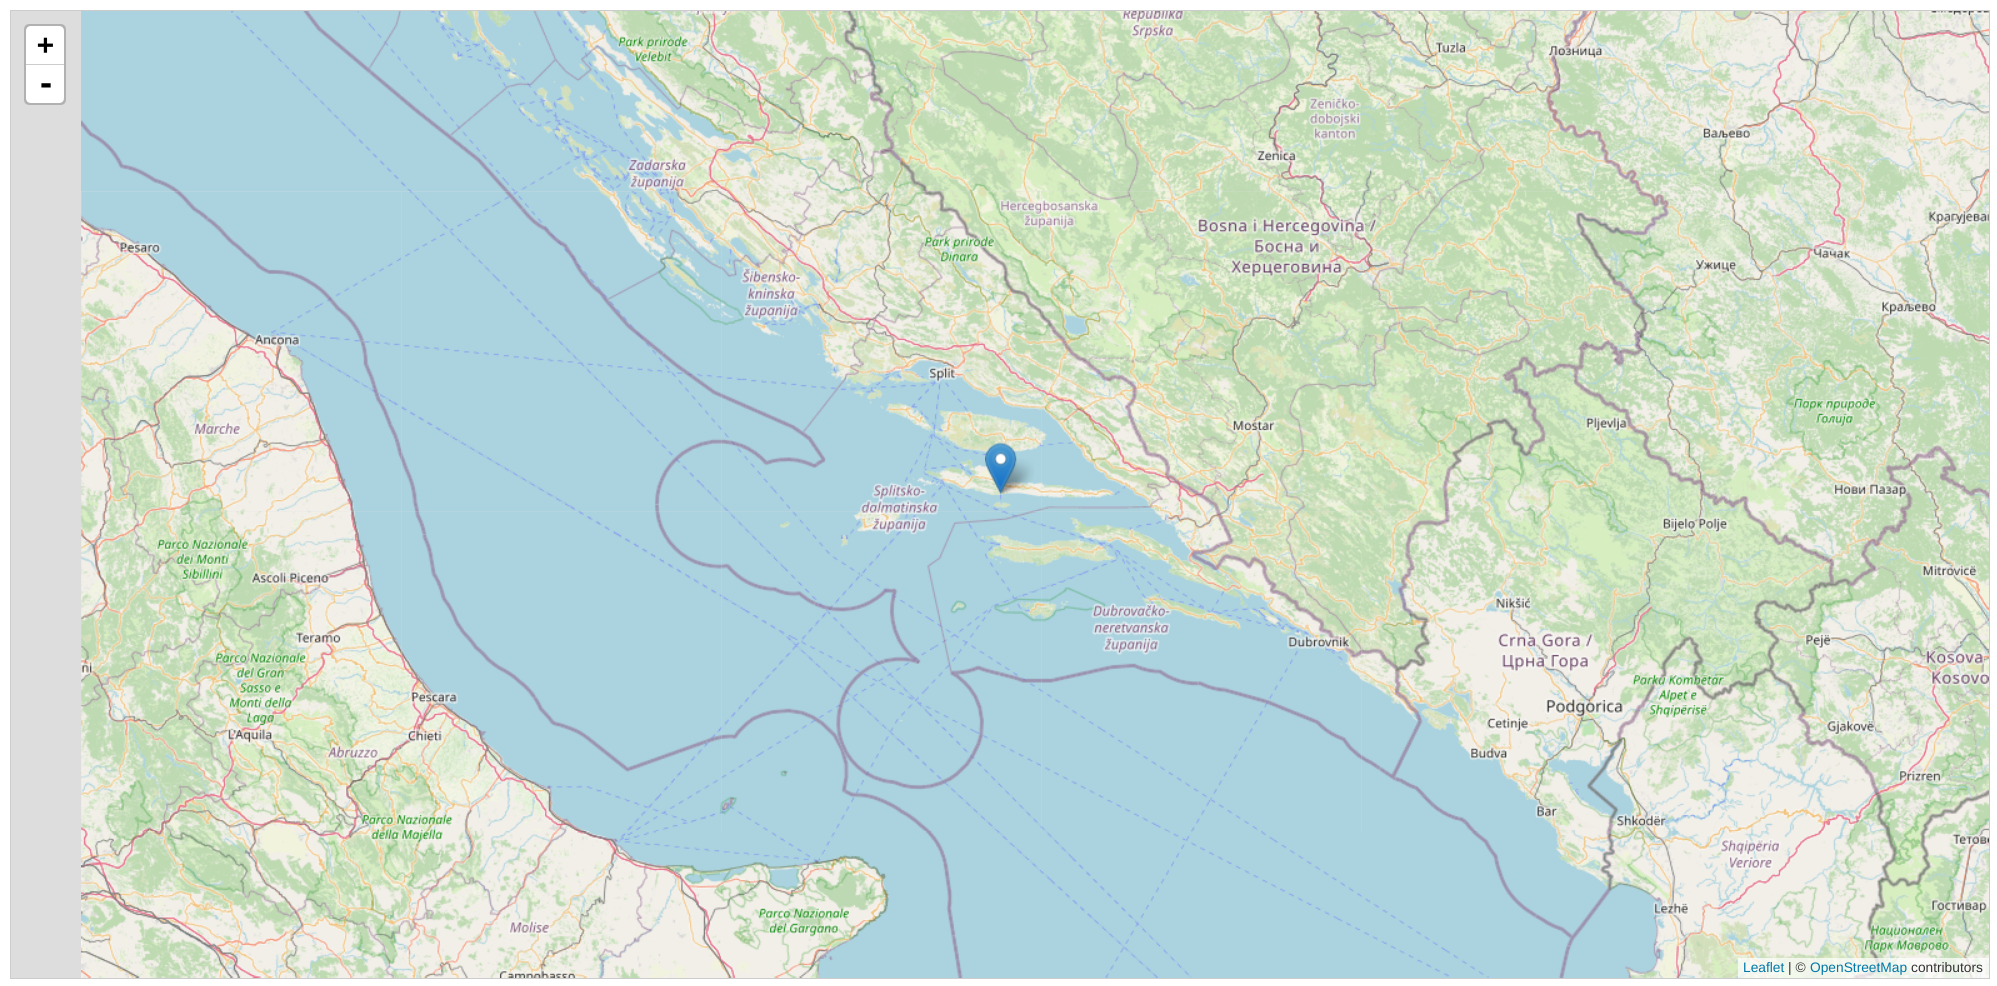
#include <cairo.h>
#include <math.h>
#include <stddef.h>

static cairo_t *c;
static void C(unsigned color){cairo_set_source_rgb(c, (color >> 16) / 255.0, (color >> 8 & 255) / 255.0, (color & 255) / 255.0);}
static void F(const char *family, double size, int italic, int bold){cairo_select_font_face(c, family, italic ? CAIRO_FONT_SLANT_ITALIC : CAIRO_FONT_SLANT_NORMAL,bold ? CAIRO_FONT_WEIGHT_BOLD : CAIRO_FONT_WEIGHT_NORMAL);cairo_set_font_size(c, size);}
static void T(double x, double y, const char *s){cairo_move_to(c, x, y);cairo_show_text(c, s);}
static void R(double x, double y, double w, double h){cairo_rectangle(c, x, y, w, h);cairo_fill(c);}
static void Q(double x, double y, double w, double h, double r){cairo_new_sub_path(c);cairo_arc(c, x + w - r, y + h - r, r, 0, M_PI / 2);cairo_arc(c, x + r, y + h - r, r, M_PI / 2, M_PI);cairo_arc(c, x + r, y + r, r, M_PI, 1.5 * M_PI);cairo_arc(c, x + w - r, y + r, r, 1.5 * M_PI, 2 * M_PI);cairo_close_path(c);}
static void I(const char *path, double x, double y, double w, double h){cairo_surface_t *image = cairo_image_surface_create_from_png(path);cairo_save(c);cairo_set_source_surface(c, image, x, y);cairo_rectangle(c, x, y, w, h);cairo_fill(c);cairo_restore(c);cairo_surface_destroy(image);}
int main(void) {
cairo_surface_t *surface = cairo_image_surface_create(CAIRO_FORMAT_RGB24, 1997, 986);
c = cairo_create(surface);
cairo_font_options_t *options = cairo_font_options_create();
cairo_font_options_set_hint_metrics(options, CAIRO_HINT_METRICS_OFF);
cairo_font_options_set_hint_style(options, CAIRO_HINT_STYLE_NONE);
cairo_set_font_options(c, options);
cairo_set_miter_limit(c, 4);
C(0xffffff);
cairo_paint(c);
C(0xdddddd);
R(11,11,1670,967);
cairo_rectangle(c,10.5,10.5,1979,968);
C(0xcccccc);
cairo_set_line_width(c,1);
cairo_stroke(c);
I("1.png",81,11,320,180);
I("2.png",401,11,320,180);
I("3.png",721,11,320,180);
I("4.png",1041,11,320,180);
I("5.png",1361,11,320,180);
I("6.png",1681,11,308,180);
I("9.png",721,191,321,321);
I("10.png",1041,191,321,321);
I("15.png",721,511,321,320);
I("8.png",401,191,321,321);
I("14.png",401,511,321,320);
I("7.png",81,191,321,321);
I("16.png",1041,511,321,320);
I("11.png",1361,191,320,321);
I("12.png",1681,191,308,320);
I("20.png",401,831,320,147);
I("13.png",81,511,321,321);
I("17.png",1361,511,320,320);
I("18.png",1681,511,308,320);
I("19.png",81,831,320,147);
I("21.png",721,831,320,147);
I("22.png",1041,831,320,147);
I("23.png",1361,831,320,147);
I("24.png",1681,831,308,147);
I("26.png",996,458,38,36);
I("25.png",985,442,32,53);
Q(25.5,25.5,39,78,3.5);
C(0xb1b1b1);
cairo_set_line_width(c,3);
cairo_stroke(c);
C(0xffffff);
cairo_new_path(c);
cairo_move_to(c,31,26);
cairo_line_to(c,59,26);
cairo_curve_to(c,62,26,64,28,64,31);
cairo_line_to(c,64,65);
cairo_line_to(c,26,65);
cairo_line_to(c,26,31);
cairo_curve_to(c,26,28,28,26,31,26);
cairo_close_path(c);
cairo_fill(c);
C(0xcccccc);
R(26,64,38,1);
F("DejaVu Sans Mono",28,0,1);
C(0x000000);
T(37,54,"+");
C(0xffffff);
cairo_new_path(c);
cairo_move_to(c,26,65);
cairo_line_to(c,64,65);
cairo_line_to(c,64,98);
cairo_curve_to(c,64,101,62,103,59,103);
cairo_line_to(c,31,103);
cairo_curve_to(c,28,103,26,101,26,98);
cairo_close_path(c);
cairo_fill(c);
F("DejaVu Sans Mono",30,0,1);
C(0x000000);
T(37,94,"-");
cairo_set_source_rgba(c,1,1,1,0.7);
R(1738,958,251,20);
F("Liberation Sans",13.75,0,0);
C(0x0078a8);
T(1743,972,"Leaflet");
C(0x333333);
T(1788,972,"| ©");
C(0x0078a8);
T(1810,972,"OpenStreetMap");
C(0x333333);
T(1911,972,"contributors");
cairo_surface_write_to_png(surface, "o.png");
cairo_font_options_destroy(options);
cairo_destroy(c);
cairo_surface_destroy(surface);
return 0;
}
